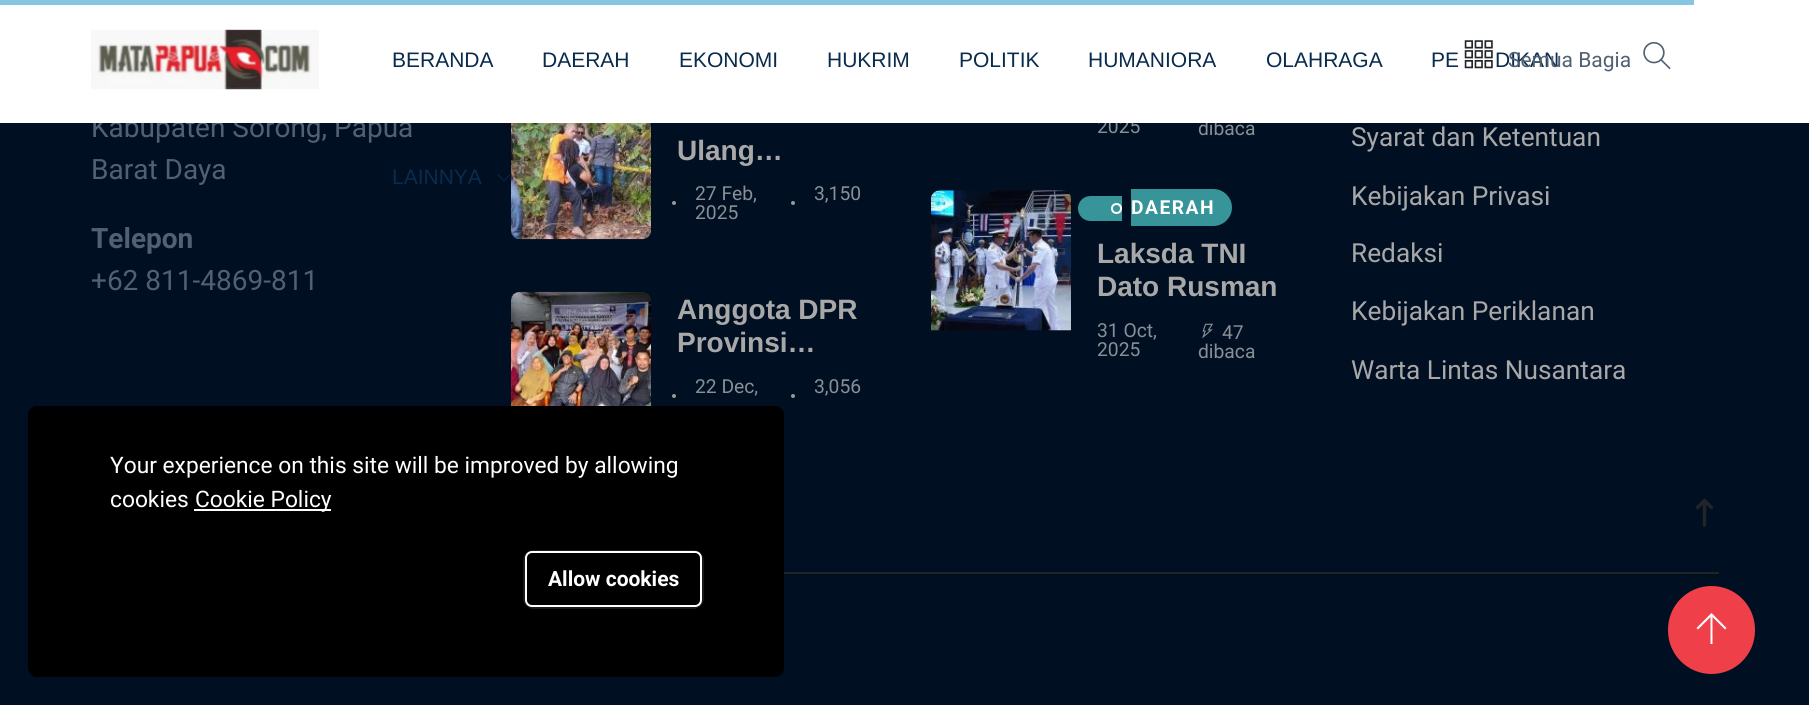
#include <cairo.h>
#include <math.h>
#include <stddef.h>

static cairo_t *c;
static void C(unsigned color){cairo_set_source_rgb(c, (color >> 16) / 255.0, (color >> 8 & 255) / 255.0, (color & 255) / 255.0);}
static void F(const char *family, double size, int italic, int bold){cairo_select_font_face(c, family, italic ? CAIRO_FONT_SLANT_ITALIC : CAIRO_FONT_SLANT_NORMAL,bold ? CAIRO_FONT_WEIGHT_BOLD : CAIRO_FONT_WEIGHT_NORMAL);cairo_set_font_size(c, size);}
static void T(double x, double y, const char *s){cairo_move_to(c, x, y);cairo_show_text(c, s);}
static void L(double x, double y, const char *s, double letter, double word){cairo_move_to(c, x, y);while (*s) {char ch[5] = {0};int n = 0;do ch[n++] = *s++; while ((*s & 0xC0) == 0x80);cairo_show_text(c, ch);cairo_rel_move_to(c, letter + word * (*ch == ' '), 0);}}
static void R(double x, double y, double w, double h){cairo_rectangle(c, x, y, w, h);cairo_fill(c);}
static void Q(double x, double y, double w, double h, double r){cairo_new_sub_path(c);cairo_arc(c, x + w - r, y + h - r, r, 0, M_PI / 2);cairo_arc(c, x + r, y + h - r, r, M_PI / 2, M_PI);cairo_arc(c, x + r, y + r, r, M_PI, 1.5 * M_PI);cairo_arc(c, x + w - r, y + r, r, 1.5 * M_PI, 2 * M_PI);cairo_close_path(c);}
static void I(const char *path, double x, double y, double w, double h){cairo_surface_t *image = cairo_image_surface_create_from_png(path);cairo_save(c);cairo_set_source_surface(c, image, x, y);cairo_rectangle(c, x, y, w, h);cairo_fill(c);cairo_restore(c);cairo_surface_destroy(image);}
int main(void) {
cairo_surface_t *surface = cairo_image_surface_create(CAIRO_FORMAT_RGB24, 1809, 705);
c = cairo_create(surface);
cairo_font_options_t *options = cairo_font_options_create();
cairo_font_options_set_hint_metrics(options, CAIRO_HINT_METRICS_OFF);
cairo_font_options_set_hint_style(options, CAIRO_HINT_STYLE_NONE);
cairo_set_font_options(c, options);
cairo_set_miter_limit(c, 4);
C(0x010f22);
cairo_paint(c);
F("Roboto",28,0,0);
C(0x506172);
T(91,137,"Kabupaten Sorong, Papua");
F("Roboto",19.25,0,0);
C(0x889097);
T(1097,133,"2025");
T(1198,135,"dibaca");
C(0xffffff);
R(0,0,1809,123);
C(0x87c6e3);
R(0,0,1694,5);
I("1.png",91,29,228,61);
F("Arimo",21,0,0);
C(0x092b4d);
T(392,67,"BERANDA");
T(542,67,"DAERAH");
T(679,67,"EKONOMI");
T(827,67,"HUKRIM");
T(959,67,"POLITIK");
T(1088,67,"HUMANIORA");
T(1266,67,"OLAHRAGA");
T(1431,67,"PE");
T(1495,67,"DIKAN");
T(392,184,"LAINNYA");
I("2.png",497,174,14,7);
I("3.png",1464,40,29,29);
F("Roboto",21,0,0);
C(0x506172);
T(1508,67,"Semua Bagia");
I("4.png",1643,42,28,28);
F("Roboto",28,0,0);
T(91,179,"Barat Daya");
F("Roboto",28,0,1);
T(91,248,"Telepon");
F("Roboto",28,0,0);
T(91,290,"+62 811-4869-811");
I("5.png",511,123,140,117);
F("Arimo",28,0,1);
C(0xa8a8a8);
T(677,160,"Ulang…");
C(0x999999);
cairo_new_path(c);
cairo_arc(c,674,203,2,0,2 * M_PI);
cairo_fill(c);
F("Roboto",19.25,0,0);
C(0x889097);
T(695,200,"27 Feb,");
T(695,219,"2025");
C(0x999999);
cairo_new_path(c);
cairo_arc(c,793,203,2,0,2 * M_PI);
cairo_fill(c);
C(0x889097);
T(814,200,"3,150");
I("6.png",511,291,140,115);
F("Arimo",28,0,1);
C(0xa8a8a8);
T(677,319,"Anggota DPR");
T(677,352,"Provinsi…");
C(0x999999);
cairo_new_path(c);
cairo_arc(c,674,396,2,0,2 * M_PI);
cairo_fill(c);
F("Roboto",19.25,0,0);
C(0x889097);
T(695,393,"22 Dec,");
C(0x999999);
cairo_new_path(c);
cairo_arc(c,793,396,2,0,2 * M_PI);
cairo_fill(c);
C(0x889097);
T(814,393,"3,056");
I("7.png",931,190,140,141);
C(0x379499);
cairo_new_path(c);
cairo_move_to(c,1090.5,196);
cairo_line_to(c,1122,196);
cairo_line_to(c,1122,221);
cairo_line_to(c,1090.5,221);
cairo_curve_to(c,1083.5,221,1078,215.5,1078,208.5);
cairo_curve_to(c,1078,201.5,1083.5,196,1090.5,196);
cairo_close_path(c);
cairo_fill(c);
cairo_new_path(c);
cairo_move_to(c,1131,189);
cairo_line_to(c,1213.5,189);
cairo_curve_to(c,1223.5,189,1232,197.5,1232,207.5);
cairo_curve_to(c,1232,217.5,1223.5,226,1213.5,226);
cairo_line_to(c,1131,226);
cairo_close_path(c);
cairo_fill(c);
cairo_arc(c,1116.5,208.5,4.5,0,2 * M_PI);
C(0xffffff);
cairo_stroke(c);
F("Roboto",19.25,0,1);
L(1131,214,"DAERAH",1.5,0);
F("Arimo",28,0,1);
C(0xa8a8a8);
T(1097,263,"Laksda TNI");
T(1097,296,"Dato Rusman");
F("Roboto",19.25,0,0);
C(0x889097);
T(1097,337,"31 Oct,");
T(1097,356,"2025");
I("8.png",1202,323,12,16);
T(1222,339,"47");
T(1198,358,"dibaca");
cairo_new_path(c);
cairo_move_to(c,1351,167);
cairo_line_to(c,1601,167);
C(0x010d1d);
cairo_set_line_width(c,1.8);
cairo_set_dash(c,(double[]){1.75,1.75},2,0);
cairo_stroke(c);
F("Roboto",26.25,0,0);
C(0xa8a8a8);
T(1351,146,"Syarat dan Ketentuan");
T(1351,205,"Kebijakan Privasi");
cairo_new_path(c);
cairo_move_to(c,1351,282.5);
cairo_line_to(c,1626,282.5);
C(0x010d1d);
cairo_stroke(c);
C(0xa8a8a8);
T(1351,262,"Redaksi");
cairo_new_path(c);
cairo_move_to(c,1351,342);
cairo_line_to(c,1626,342);
C(0x010d1d);
cairo_stroke(c);
C(0xa8a8a8);
T(1351,320,"Kebijakan Periklanan");
T(1351,379,"Warta Lintas Nusantara");
C(0x242323);
R(784,572,935,2);
C(0x000000);
Q(28,406,756,271,9);
cairo_fill(c);
F("Roboto",22.75,0,0);
C(0xffffff);
T(110,473,"Your experience on this site will be improved by allowing");
T(110,507,"cookies");
R(194,509,137,2);
T(195,507,"Cookie Policy");
C(0x1a1a1a);
Q(523,550,181,59,11);
cairo_fill(c);
C(0x000000);
Q(526,552,175,54,6);
cairo_fill_preserve(c);
C(0xffffff);
cairo_set_line_width(c,2);
cairo_set_dash(c,NULL,0,0);
cairo_stroke(c);
F("Roboto",21,0,1);
T(548,586,"Allow cookies");
cairo_new_path(c);
cairo_move_to(c,1704.5,500.5);
cairo_line_to(c,1704.5,525);
cairo_move_to(c,1711.5,507.5);
cairo_line_to(c,1704.5,500.5);
cairo_move_to(c,1697.5,507.5);
cairo_line_to(c,1704.5,500.5);
C(0x212529);
cairo_set_line_width(c,3.5);
cairo_set_line_cap(c,CAIRO_LINE_CAP_ROUND);
cairo_set_line_join(c,CAIRO_LINE_JOIN_ROUND);
cairo_stroke(c);
C(0xef3f48);
Q(1668,586,87,88,43.5);
cairo_fill(c);
C(0xffffff);
cairo_new_path(c);
cairo_move_to(c,1725,629.5);
cairo_line_to(c,1712.5,617);
cairo_line_to(c,1712.5,644);
cairo_line_to(c,1710.5,644);
cairo_line_to(c,1710.5,617);
cairo_line_to(c,1698,629.5);
cairo_line_to(c,1696.5,628);
cairo_line_to(c,1711.5,613);
cairo_line_to(c,1726.5,628);
cairo_close_path(c);
cairo_fill(c);
cairo_surface_write_to_png(surface, "o.png");
cairo_font_options_destroy(options);
cairo_destroy(c);
cairo_surface_destroy(surface);
return 0;
}
